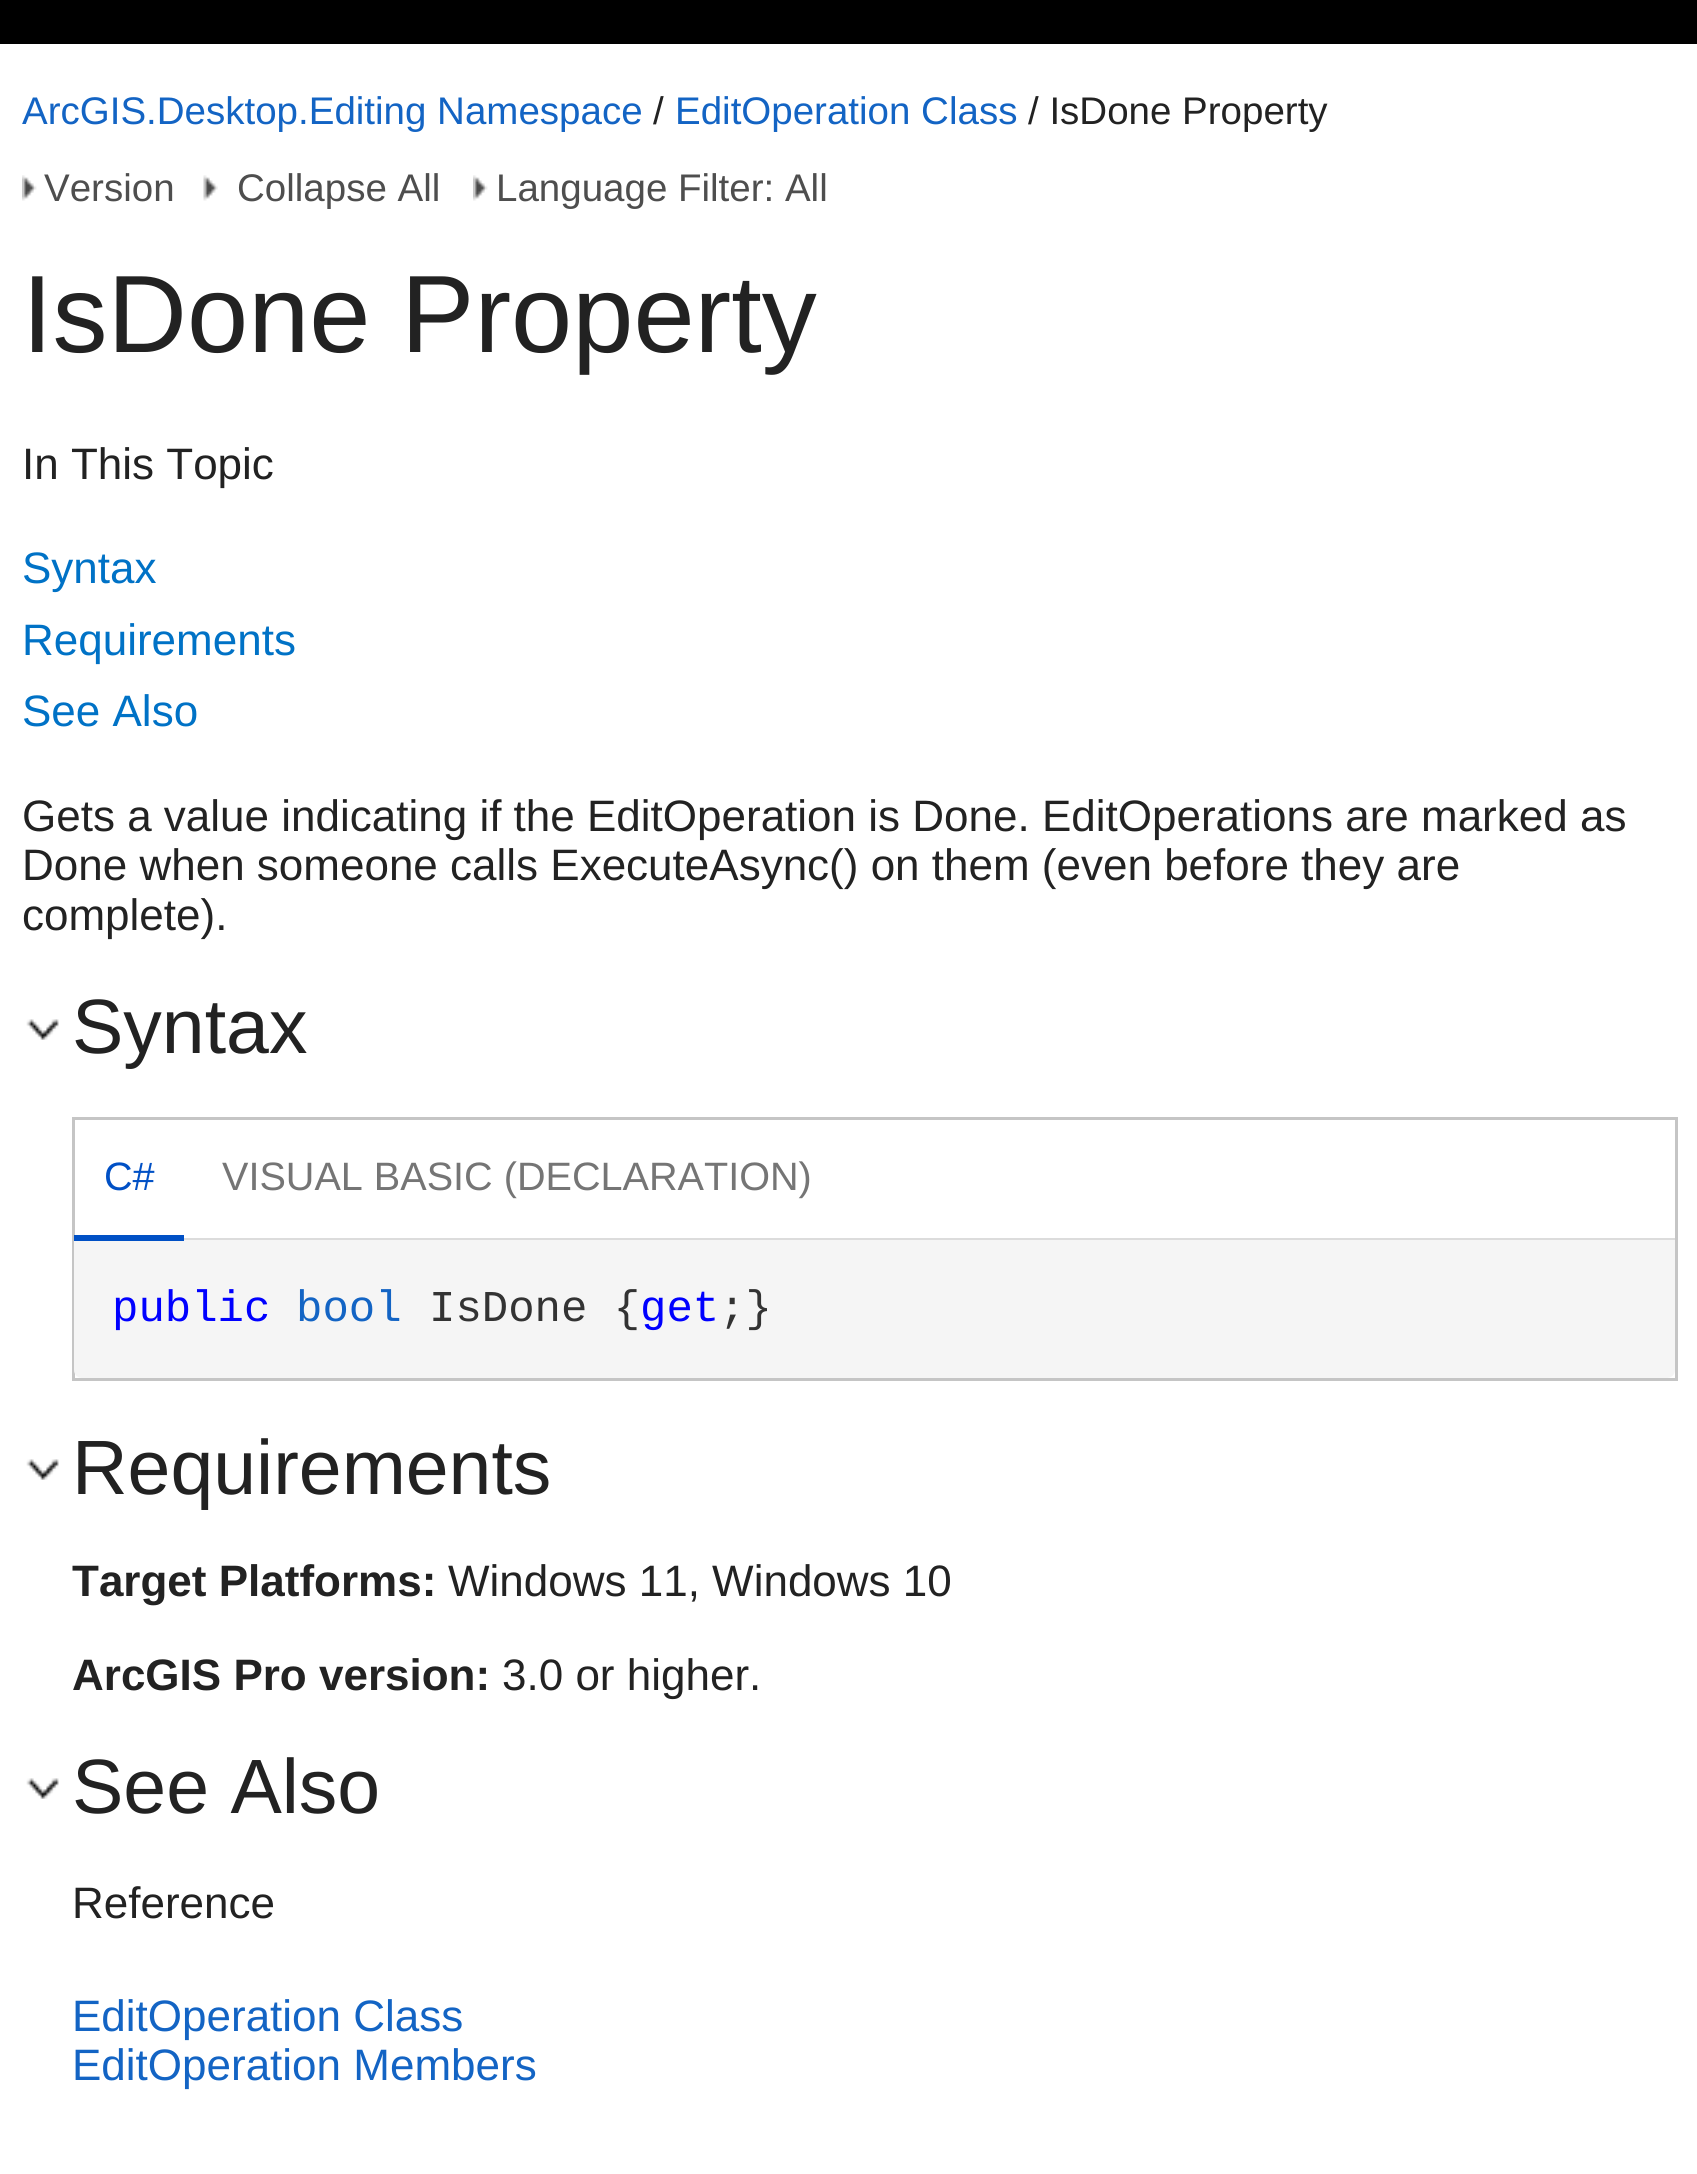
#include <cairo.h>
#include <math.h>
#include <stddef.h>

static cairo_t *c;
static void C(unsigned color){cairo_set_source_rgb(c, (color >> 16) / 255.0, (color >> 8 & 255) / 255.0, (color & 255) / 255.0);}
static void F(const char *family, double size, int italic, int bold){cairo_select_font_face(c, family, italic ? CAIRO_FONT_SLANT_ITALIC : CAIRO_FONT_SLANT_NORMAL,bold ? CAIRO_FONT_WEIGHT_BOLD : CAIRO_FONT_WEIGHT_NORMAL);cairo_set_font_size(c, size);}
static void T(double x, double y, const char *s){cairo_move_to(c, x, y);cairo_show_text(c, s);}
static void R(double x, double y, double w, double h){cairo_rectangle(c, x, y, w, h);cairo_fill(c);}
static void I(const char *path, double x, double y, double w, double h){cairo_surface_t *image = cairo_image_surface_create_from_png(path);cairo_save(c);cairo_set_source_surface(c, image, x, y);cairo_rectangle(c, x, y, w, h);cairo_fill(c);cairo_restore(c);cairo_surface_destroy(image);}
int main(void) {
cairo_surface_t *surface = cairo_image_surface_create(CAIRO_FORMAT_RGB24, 1697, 2174);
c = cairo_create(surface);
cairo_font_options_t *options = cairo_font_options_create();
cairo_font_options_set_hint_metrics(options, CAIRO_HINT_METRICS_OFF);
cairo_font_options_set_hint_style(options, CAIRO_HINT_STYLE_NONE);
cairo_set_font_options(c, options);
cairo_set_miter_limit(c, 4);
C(0xffffff);
cairo_paint(c);
C(0x000000);
R(0,0,1697,44);
F("Liberation Sans",38.5,0,0);
C(0x1364c4);
T(22,124,"ArcGIS.Desktop.Editing Namespace");
C(0x222222);
T(653,124,"/");
C(0x1364c4);
T(675,124,"EditOperation Class");
C(0x222222);
T(1028,124,"/ IsDone Property");
I("1.png",22,175,15,26);
C(0x4e4e4e);
T(44,201,"Version");
I("2.png",203,175,15,26);
T(237,201,"Collapse All");
I("3.png",473,175,15,26);
T(496,201,"Language Filter: All");
F("Liberation Sans",110,0,0);
C(0x222222);
T(22,352,"IsDone Property");
F("Liberation Sans",44,0,0);
T(22,479,"In This Topic");
C(0x0072c6);
T(22,583,"Syntax");
T(22,655,"Requirements");
T(22,726,"See Also");
C(0x222222);
T(22,831,"Gets a value indicating if the EditOperation is Done. EditOperations are marked as");
T(22,880,"Done when someone calls ExecuteAsync() on them (even before they are");
T(22,930,"complete).");
I("4.png",26,1019,33,21);
F("Liberation Sans",77,0,0);
T(72,1053,"Syntax");
cairo_rectangle(c,73.5,1118.5,1603,261);
C(0xc5c5c5);
cairo_set_line_width(c,3);
cairo_stroke(c);
C(0xdcdcdc);
R(184,1238,1491,2);
C(0xf5f5f5);
cairo_new_path(c);
cairo_move_to(c,74,1240);
cairo_line_to(c,1675,1240);
cairo_line_to(c,1675,1370);
cairo_curve_to(c,1675,1374.5,1671.5,1378,1667,1378);
cairo_line_to(c,82,1378);
cairo_curve_to(c,77.5,1378,74,1374.5,74,1370);
cairo_close_path(c);
cairo_fill(c);
C(0x0050c5);
R(74,1235,110,6);
F("Liberation Sans",39.6,0,0);
T(104,1190,"C#");
C(0x757575);
T(222,1190,"VISUAL BASIC (DECLARATION)");
F("Liberation Mono",44,0,0);
C(0x0000ff);
T(112,1321,"public");
C(0x1364c4);
T(296,1321,"bool");
C(0x333333);
T(429,1321,"IsDone {");
C(0x0000ff);
T(640,1321,"get");
C(0x333333);
T(719,1321,";}");
I("4.png",26,1459,33,21);
F("Liberation Sans",77,0,0);
C(0x222222);
T(72,1494,"Requirements");
F("Liberation Sans",44,0,1);
T(72,1596,"Target Platforms:");
F("Liberation Sans",44,0,0);
T(448,1596,"Windows 11, Windows 10");
F("Liberation Sans",44,0,1);
T(72,1690,"ArcGIS Pro version:");
F("Liberation Sans",44,0,0);
T(502,1690,"3.0 or higher.");
I("5.png",26,1778,33,21);
F("Liberation Sans",77,0,0);
T(72,1813,"See Also");
F("Liberation Sans",44,0,0);
T(72,1918,"Reference");
C(0x1364c4);
T(72,2031,"EditOperation Class");
T(72,2080,"EditOperation Members");
cairo_surface_write_to_png(surface, "o.png");
cairo_font_options_destroy(options);
cairo_destroy(c);
cairo_surface_destroy(surface);
return 0;
}
